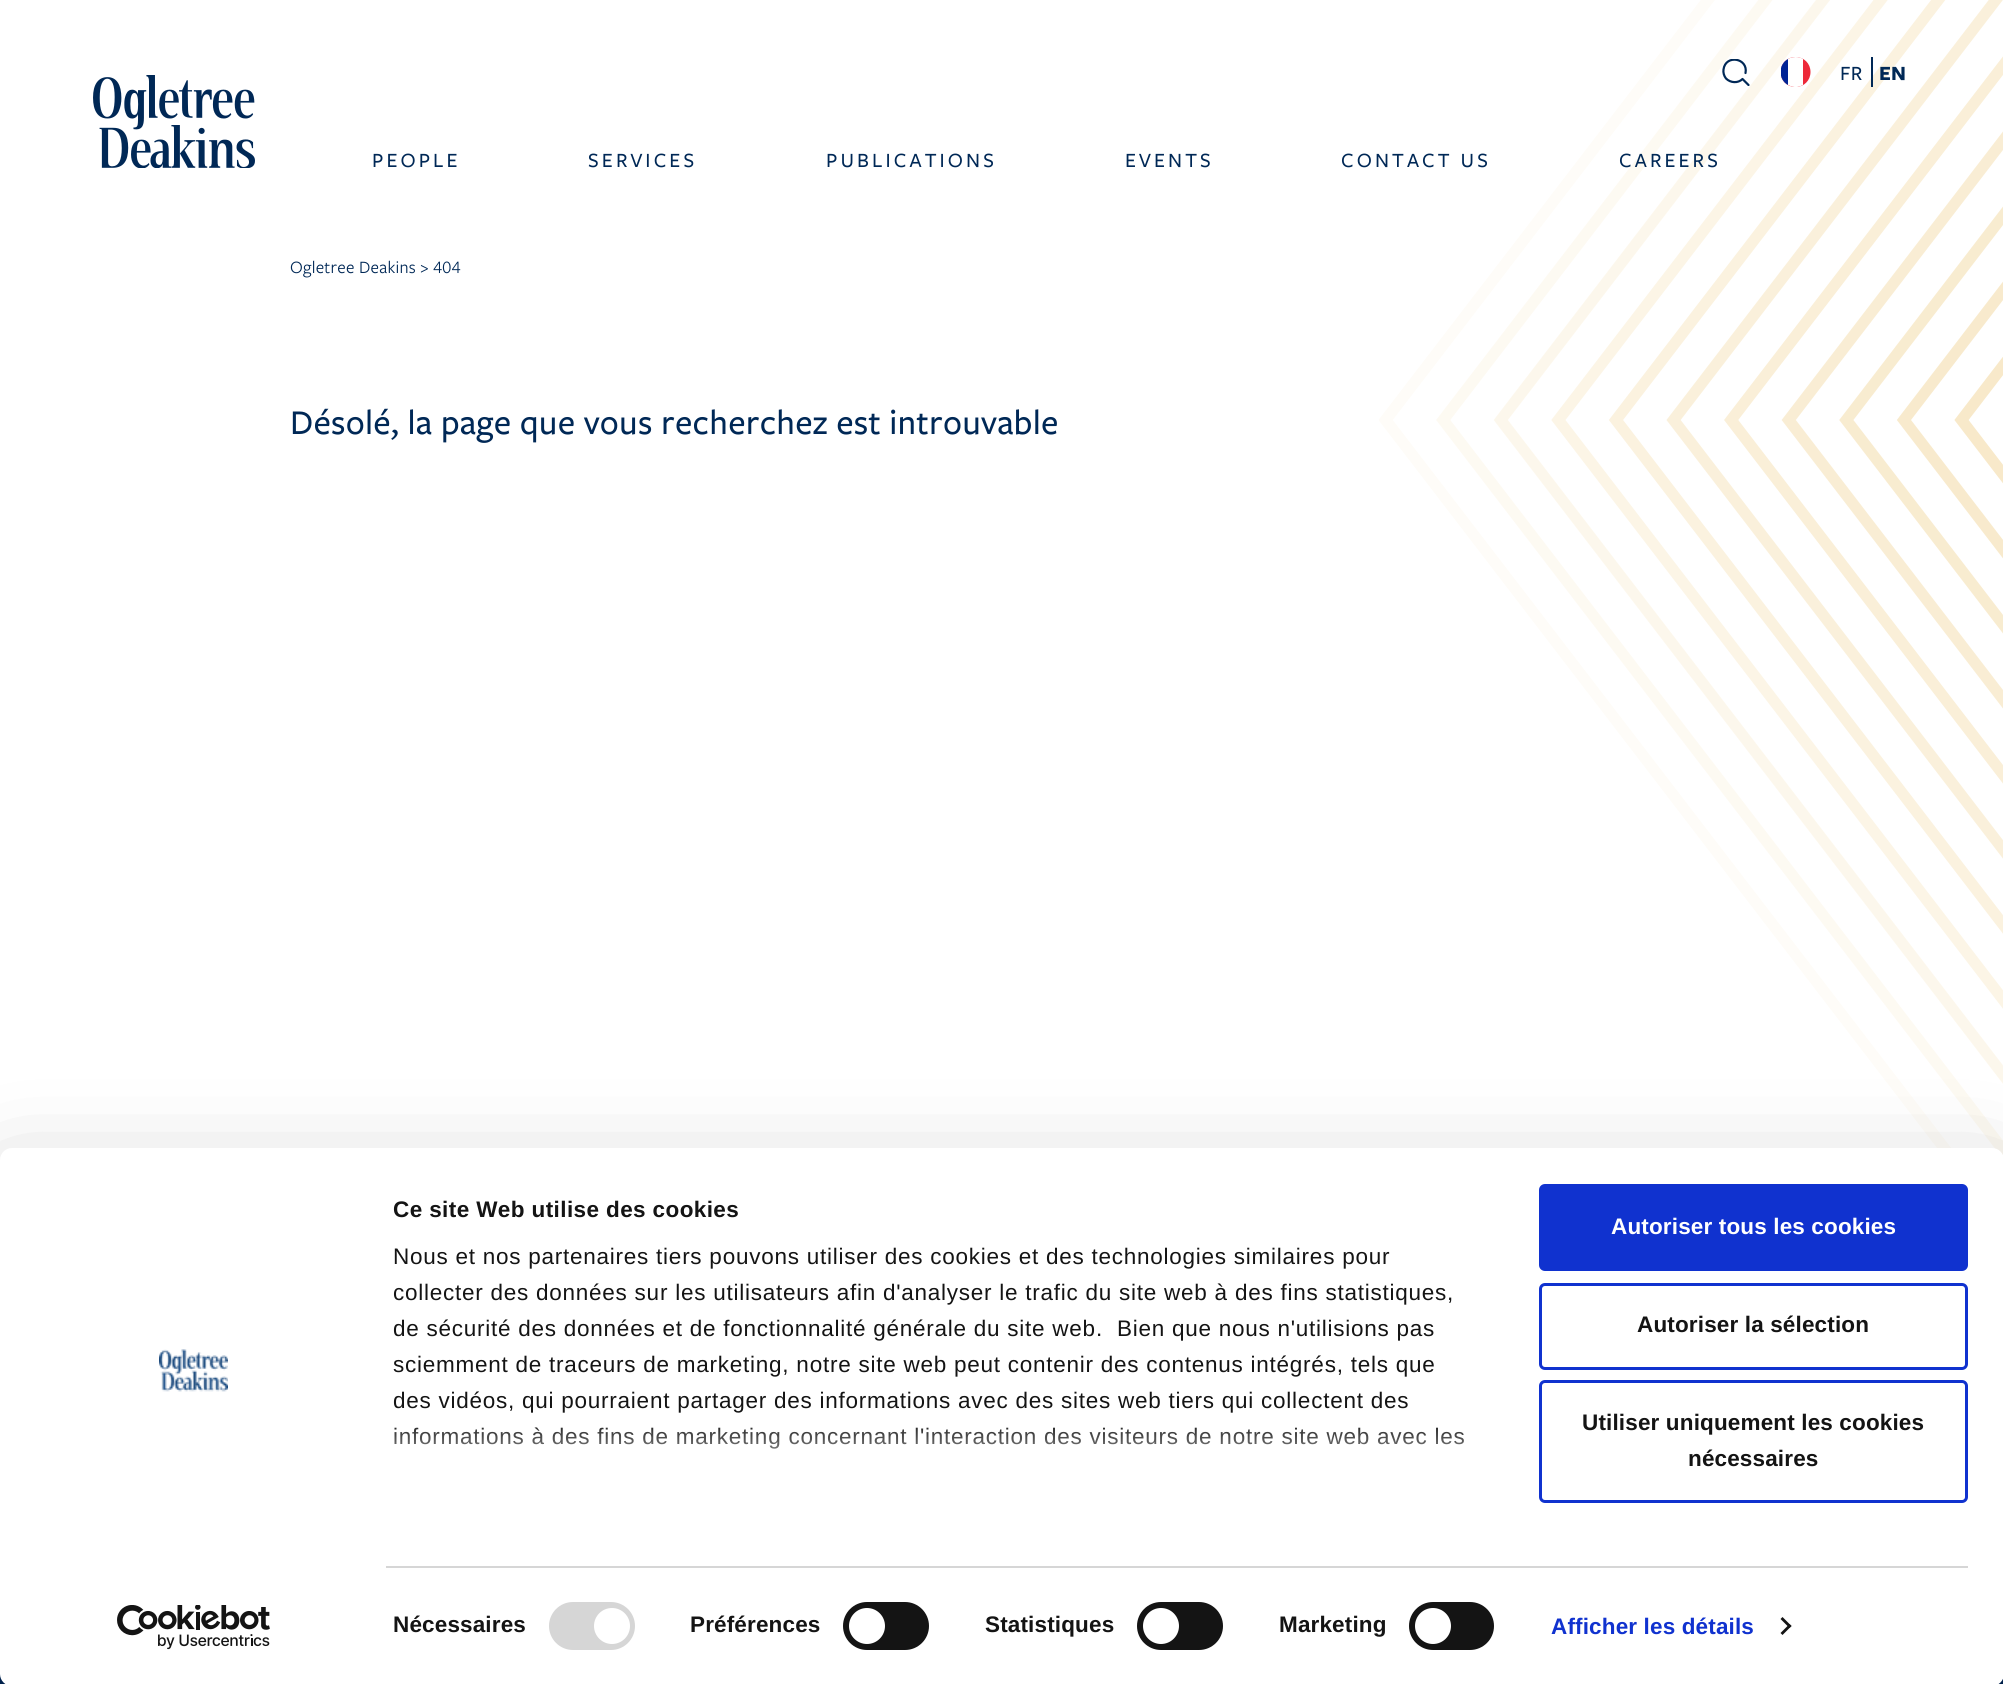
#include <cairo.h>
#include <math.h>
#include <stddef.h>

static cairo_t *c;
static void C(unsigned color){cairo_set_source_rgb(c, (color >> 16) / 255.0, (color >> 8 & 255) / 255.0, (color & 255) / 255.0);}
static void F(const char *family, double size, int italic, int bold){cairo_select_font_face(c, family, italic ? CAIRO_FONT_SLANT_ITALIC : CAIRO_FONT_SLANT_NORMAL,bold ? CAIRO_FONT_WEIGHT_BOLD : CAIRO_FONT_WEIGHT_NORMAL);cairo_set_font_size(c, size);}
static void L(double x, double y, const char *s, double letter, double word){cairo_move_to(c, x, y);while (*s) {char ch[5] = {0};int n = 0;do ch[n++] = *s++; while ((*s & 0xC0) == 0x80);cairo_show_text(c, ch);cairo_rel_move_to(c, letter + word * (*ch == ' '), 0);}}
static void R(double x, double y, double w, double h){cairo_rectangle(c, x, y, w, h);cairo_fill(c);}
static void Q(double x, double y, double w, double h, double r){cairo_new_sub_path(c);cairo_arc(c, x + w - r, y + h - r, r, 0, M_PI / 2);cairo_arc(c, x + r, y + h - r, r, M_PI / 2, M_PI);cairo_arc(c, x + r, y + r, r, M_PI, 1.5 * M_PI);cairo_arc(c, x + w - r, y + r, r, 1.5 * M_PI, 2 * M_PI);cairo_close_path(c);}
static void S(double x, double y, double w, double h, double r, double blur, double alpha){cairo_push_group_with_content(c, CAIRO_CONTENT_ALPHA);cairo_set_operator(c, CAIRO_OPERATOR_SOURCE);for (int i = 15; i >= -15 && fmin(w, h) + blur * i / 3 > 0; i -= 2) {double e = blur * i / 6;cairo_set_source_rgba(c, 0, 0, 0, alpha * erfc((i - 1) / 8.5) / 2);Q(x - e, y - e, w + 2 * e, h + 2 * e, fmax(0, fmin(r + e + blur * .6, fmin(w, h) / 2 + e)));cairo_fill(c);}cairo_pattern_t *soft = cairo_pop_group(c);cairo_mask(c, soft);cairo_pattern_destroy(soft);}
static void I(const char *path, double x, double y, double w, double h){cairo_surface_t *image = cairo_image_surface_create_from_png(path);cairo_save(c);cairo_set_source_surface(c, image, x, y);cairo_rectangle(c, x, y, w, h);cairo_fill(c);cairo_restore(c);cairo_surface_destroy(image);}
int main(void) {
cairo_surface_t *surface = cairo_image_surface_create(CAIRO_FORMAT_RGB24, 2003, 1684);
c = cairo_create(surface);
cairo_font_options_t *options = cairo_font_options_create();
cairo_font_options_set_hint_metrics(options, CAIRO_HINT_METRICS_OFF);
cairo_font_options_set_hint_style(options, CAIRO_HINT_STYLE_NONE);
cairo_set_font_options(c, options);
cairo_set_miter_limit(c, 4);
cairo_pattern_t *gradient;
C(0xffffff);
cairo_paint(c);
I("2.png",1379,0,624,1156);
cairo_save(c);
cairo_rectangle(c,1722,59,29,27);
cairo_clip(c);
cairo_new_path(c);
cairo_move_to(c,1748.5,85);
cairo_line_to(c,1742.5,79);
cairo_curve_to(c,1738,83.5,1730.5,83,1726,78.5);
cairo_curve_to(c,1724,76,1723,72.5,1723.5,69.5);
cairo_curve_to(c,1725.5,54,1748.5,58,1745.5,73);
C(0x002856);
cairo_set_line_width(c,2.2);
cairo_set_line_cap(c,CAIRO_LINE_CAP_ROUND);
cairo_set_line_join(c,CAIRO_LINE_JOIN_ROUND);
cairo_stroke(c);
cairo_restore(c);
cairo_save(c);
cairo_rectangle(c,1781,57,30,30);
cairo_clip(c);
C(0xed2939);
cairo_new_path(c);
cairo_move_to(c,1795.5,57);
cairo_curve_to(c,1804,57,1810.5,63.5,1810.5,72);
cairo_curve_to(c,1810.5,80.5,1804,87,1795.5,87);
cairo_curve_to(c,1787,87,1780.5,80.5,1780.5,72);
cairo_curve_to(c,1780.5,63.5,1787,57,1795.5,57);
cairo_close_path(c);
cairo_fill(c);
C(0xffffff);
cairo_new_path(c);
cairo_move_to(c,1795.5,57);
cairo_curve_to(c,1798,57,1801,57.5,1803,59);
cairo_line_to(c,1803,85);
cairo_curve_to(c,1788.5,93.5,1772.5,74,1785,61.5);
cairo_curve_to(c,1787.5,58.5,1791.5,57,1795.5,57);
cairo_close_path(c);
cairo_fill(c);
C(0x002395);
cairo_new_path(c);
cairo_move_to(c,1788,59);
cairo_line_to(c,1788,85);
cairo_curve_to(c,1778,79.5,1778,64.5,1788,59);
cairo_close_path(c);
cairo_fill(c);
cairo_restore(c);
F("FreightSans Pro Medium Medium",21,0,0);
C(0x002856);
L(1840,80,"FR",.25,0);
R(1871,57,2,30);
F("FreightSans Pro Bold",21,0,1);
L(1879,80,"EN",.25,0);
I("1.png",93,75,162,93);
F("FreightSans Pro Medium Medium",21,0,0);
L(372,167,"PEOPLE",3.1,0);
L(588,167,"SERVICES",3.1,0);
L(826,167,"PUBLICATIONS",3.1,0);
L(1125,167,"EVENTS",3.1,0);
L(1341,167,"CONTACT US",3.1,0);
L(1619,167,"CAREERS",3.1,0);
F("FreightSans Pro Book",18,0,0);
L(290,273,"Ogletree Deakins >",.25,0);
F("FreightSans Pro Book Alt",18,0,0);
L(433,273,"404",.25,0);
F("FreightSans Pro Medium Medium",36,0,0);
L(290,434,"Désolé, la page que vous recherchez est introuvable",.25,0);
C(0x002759);
R(0,1674,2003,10);
C(0x000000);
S(0,1193,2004,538,12,52.5,.3);
C(0xffffff);
Q(0,1148,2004,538,12);
cairo_fill(c);
I("3.png",159,1349,69,43);
I("4.png",117,1605,153,45);
F("Liberation Sans",22.5,0,1);
C(0x141414);
L(393,1217,"Ce site Web utilise des cookies",.4,0);
F("Liberation Sans",22.5,0,0);
L(393,1264,"Nous et nos partenaires tiers pouvons utiliser des cookies et des technologies similaires pour",.75,0);
L(393,1300,"collecter des données sur les utilisateurs afin d'analyser le trafic du site web à des fins statistiques,",.75,0);
L(393,1336,"de sécurité des données et de fonctionnalité générale du site web.  Bien que nous n'utilisions pas",.75,0);
L(393,1372,"sciemment de traceurs de marketing, notre site web peut contenir des contenus intégrés, tels que",.75,0);
L(393,1408,"des vidéos, qui pourraient partager des informations avec des sites web tiers qui collectent des",.75,0);
L(393,1444,"informations à des fins de marketing concernant l'interaction des visiteurs de notre site web avec les",.75,0);
gradient = cairo_pattern_create_linear(930,1532,930,1420);
cairo_pattern_add_color_stop_rgba(gradient,0,1,1,1,1);
cairo_pattern_add_color_stop_rgba(gradient,.5,1,1,1,.8);
cairo_pattern_add_color_stop_rgba(gradient,1,1,1,1,0);
cairo_set_source(c,gradient);
cairo_pattern_destroy(gradient);
R(394,1427,1071,22);
C(0xd6d6d6);
R(386,1566,1582,2);
F("Liberation Sans",22.5,0,1);
C(0x141414);
L(393,1632,"Nécessaires",.15,0);
C(0xd6d6d6);
Q(549,1602,86,48,24);
cairo_fill(c);
C(0xffffff);
cairo_arc(c,612,1626,18,0,2 * M_PI);
cairo_fill(c);
C(0x141414);
L(690,1632,"Préférences",.15,0);
Q(843,1602,86,48,24);
cairo_fill(c);
C(0xffffff);
cairo_arc(c,867,1626,18,0,2 * M_PI);
cairo_fill(c);
C(0x141414);
L(985,1632,"Statistiques",.15,0);
Q(1137,1602,86,48,24);
cairo_fill(c);
C(0xffffff);
cairo_arc(c,1161,1626,18,0,2 * M_PI);
cairo_fill(c);
C(0x141414);
L(1279,1632,"Marketing",.15,0);
Q(1409,1602,85,48,24);
cairo_fill(c);
C(0xffffff);
cairo_arc(c,1433,1626,18,0,2 * M_PI);
cairo_fill(c);
C(0x1032cf);
L(1551,1634,"Afficher les détails",.15,0);
C(0x141414);
cairo_new_path(c);
cairo_move_to(c,1782.5,1617);
cairo_line_to(c,1791.5,1626);
cairo_line_to(c,1789.5,1628);
cairo_line_to(c,1780.5,1619);
cairo_close_path(c);
cairo_fill(c);
cairo_new_path(c);
cairo_move_to(c,1789.5,1624);
cairo_line_to(c,1791.5,1626);
cairo_line_to(c,1782.5,1635);
cairo_line_to(c,1780.5,1633);
cairo_close_path(c);
cairo_fill(c);
C(0x1032cf);
Q(1540.5,1185.5,426,84,4.5);
cairo_fill_preserve(c);
cairo_set_line_width(c,3);
cairo_stroke(c);
C(0xffffff);
L(1611,1234,"Autoriser tous les cookies",.15,0);
Q(1540.5,1284.5,426,84,4.5);
C(0x1032cf);
cairo_stroke(c);
C(0x141414);
L(1637,1332,"Autoriser la sélection",.15,0);
Q(1540.5,1381.5,426,120,4.5);
C(0x1032cf);
cairo_stroke(c);
C(0x141414);
L(1582,1430,"Utiliser uniquement les cookies",.15,0);
L(1688,1466,"nécessaires",.15,0);
cairo_surface_write_to_png(surface, "o.png");
cairo_font_options_destroy(options);
cairo_destroy(c);
cairo_surface_destroy(surface);
return 0;
}
